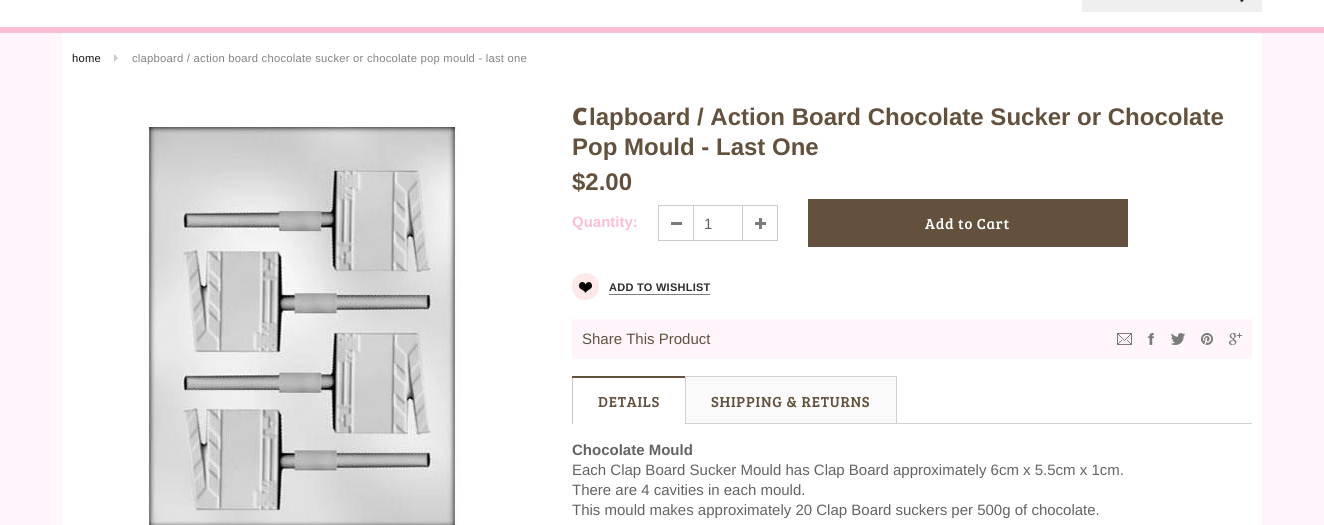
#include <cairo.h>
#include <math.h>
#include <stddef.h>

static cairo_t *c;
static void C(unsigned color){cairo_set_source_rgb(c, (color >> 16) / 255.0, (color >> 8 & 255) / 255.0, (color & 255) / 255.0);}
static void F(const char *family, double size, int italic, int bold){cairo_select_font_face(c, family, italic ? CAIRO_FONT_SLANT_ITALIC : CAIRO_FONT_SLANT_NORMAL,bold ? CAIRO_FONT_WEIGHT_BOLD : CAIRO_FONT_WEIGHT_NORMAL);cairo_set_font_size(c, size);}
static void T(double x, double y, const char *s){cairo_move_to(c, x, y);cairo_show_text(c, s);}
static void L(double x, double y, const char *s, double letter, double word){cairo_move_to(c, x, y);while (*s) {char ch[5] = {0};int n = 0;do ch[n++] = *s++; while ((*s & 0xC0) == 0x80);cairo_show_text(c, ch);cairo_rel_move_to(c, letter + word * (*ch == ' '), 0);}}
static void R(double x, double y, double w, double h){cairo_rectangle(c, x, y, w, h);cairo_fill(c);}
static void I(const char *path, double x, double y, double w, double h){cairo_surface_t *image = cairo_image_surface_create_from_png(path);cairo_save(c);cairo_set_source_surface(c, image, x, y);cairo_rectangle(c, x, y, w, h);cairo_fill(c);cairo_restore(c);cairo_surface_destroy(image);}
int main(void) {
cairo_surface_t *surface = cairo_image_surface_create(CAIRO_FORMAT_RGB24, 1324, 525);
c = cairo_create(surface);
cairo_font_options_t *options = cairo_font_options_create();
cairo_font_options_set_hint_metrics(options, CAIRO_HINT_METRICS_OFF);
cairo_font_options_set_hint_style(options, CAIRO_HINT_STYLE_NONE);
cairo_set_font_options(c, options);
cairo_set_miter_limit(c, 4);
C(0xfff5fb);
cairo_paint(c);
C(0xffffff);
R(0,0,1324,27);
C(0xffbed6);
R(0,27,1324,6);
C(0xefefef);
R(1082,0,180,12);
I("1.png",1240,0,4,3);
C(0xffffff);
R(62,33,1200,492);
F("Liberation Sans",11.25,0,0);
C(0x141414);
L(72,62,"home",.23,0);
C(0xcbcbcb);
cairo_new_path(c);
cairo_move_to(c,114,62);
cairo_line_to(c,114,54);
cairo_line_to(c,118,58);
cairo_close_path(c);
cairo_fill(c);
C(0x848484);
L(132,62,"clapboard / action board chocolate sucker or chocolate pop mould - last one",.23,0);
I("2.png",144,127,316,398);
F("Noto Sans Black",24,0,0);
C(0x63513d);
T(572,125,"C");
F("Liberation Sans",24,0,1);
T(589,125,"lapboard / Action Board Chocolate Sucker or Chocolate");
T(572,155,"Pop Mould - Last One");
T(572,190,"$2.00");
F("Liberation Sans",15,0,1);
C(0xffbed6);
T(572,227,"Quantity:");
C(0x7b7b7b);
R(671,222,11,3);
C(0xcbcbcb);
R(658,205,35,1);
R(658,240,35,1);
R(658,205,1,36);
cairo_rectangle(c,693.5,205.5,49,35);
cairo_set_line_width(c,1);
cairo_stroke(c);
F("Liberation Sans",15,0,0);
C(0x636363);
T(704,229,"1");
I("3.png",755,218,11,11);
C(0xcbcbcb);
R(743,205,35,1);
R(777,205,1,36);
R(743,240,35,1);
C(0x63513d);
R(808,199,320,48);
F("Bree Serif",15,0,0);
C(0xffffff);
L(925,229,"Add to Cart",.75,0);
I("4.png",572,273,27,27);
C(0x7b7b7b);
R(609,294,101,1);
F("Liberation Sans",11,0,1);
C(0x2d2d2d);
L(609,291,"ADD TO WISHLIST",.25,0);
C(0xfff5fb);
R(572,319,680,40);
F("Liberation Sans",15,0,0);
C(0x63513d);
T(582,344,"Share This Product");
I("5.png",1117,333,15,12);
I("6.png",1148,333,6,12);
I("7.png",1171,333,14,12);
I("8.png",1201,333,12,12);
I("9.png",1229,333,13,12);
C(0xd0d0d0);
R(686,423,566,1);
C(0x63513d);
R(572,376,114,2);
C(0xc8c8c8);
R(685,423,1,1);
R(572,378,1,46);
F("Bree Serif",15,0,0);
C(0x63513d);
L(598,407,"DETAILS",.75,0);
C(0xfafafa);
R(686,377,210,46);
C(0xd0d0d0);
R(685,376,212,1);
R(896,376,1,47);
R(685,376,1,47);
C(0x63513d);
L(711,407,"SHIPPING & RETURNS",.75,0);
F("Liberation Sans",15,0,1);
C(0x636363);
T(572,455,"Chocolate Mould");
F("Liberation Sans",15,0,0);
T(572,475,"Each Clap Board Sucker Mould has Clap Board approximately 6cm x 5.5cm x 1cm.");
T(572,495,"There are 4 cavities in each mould.");
T(572,515,"This mould makes approximately 20 Clap Board suckers per 500g of chocolate.");
cairo_surface_write_to_png(surface, "o.png");
cairo_font_options_destroy(options);
cairo_destroy(c);
cairo_surface_destroy(surface);
return 0;
}
